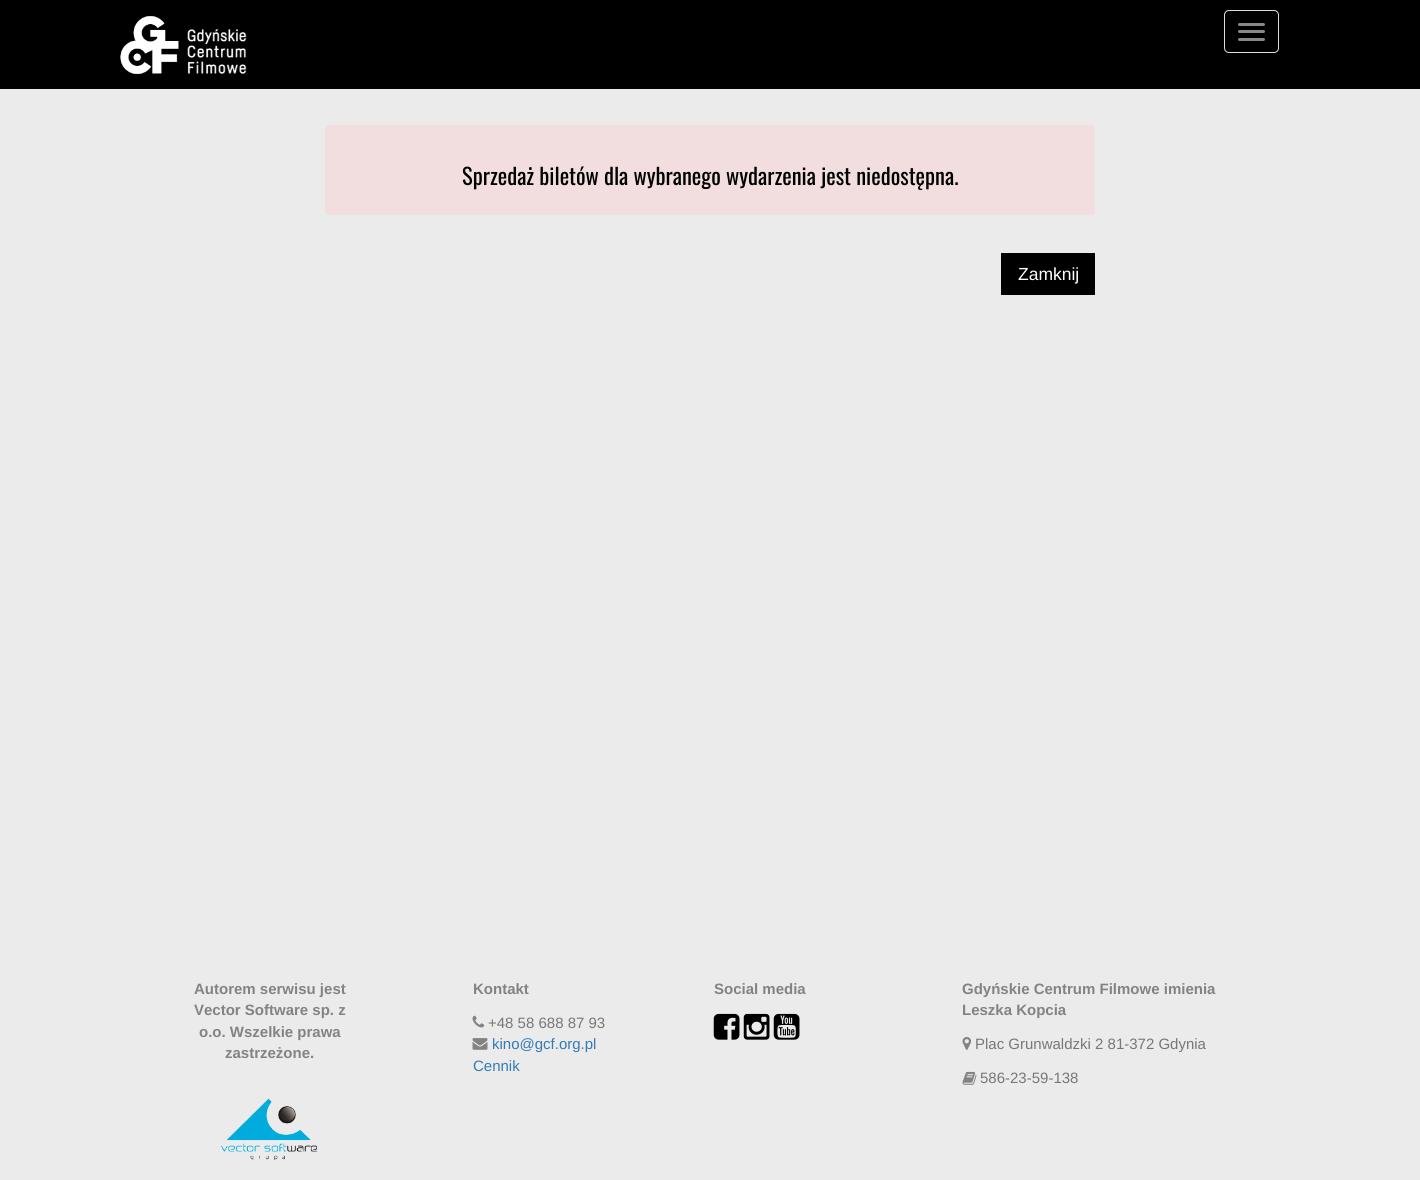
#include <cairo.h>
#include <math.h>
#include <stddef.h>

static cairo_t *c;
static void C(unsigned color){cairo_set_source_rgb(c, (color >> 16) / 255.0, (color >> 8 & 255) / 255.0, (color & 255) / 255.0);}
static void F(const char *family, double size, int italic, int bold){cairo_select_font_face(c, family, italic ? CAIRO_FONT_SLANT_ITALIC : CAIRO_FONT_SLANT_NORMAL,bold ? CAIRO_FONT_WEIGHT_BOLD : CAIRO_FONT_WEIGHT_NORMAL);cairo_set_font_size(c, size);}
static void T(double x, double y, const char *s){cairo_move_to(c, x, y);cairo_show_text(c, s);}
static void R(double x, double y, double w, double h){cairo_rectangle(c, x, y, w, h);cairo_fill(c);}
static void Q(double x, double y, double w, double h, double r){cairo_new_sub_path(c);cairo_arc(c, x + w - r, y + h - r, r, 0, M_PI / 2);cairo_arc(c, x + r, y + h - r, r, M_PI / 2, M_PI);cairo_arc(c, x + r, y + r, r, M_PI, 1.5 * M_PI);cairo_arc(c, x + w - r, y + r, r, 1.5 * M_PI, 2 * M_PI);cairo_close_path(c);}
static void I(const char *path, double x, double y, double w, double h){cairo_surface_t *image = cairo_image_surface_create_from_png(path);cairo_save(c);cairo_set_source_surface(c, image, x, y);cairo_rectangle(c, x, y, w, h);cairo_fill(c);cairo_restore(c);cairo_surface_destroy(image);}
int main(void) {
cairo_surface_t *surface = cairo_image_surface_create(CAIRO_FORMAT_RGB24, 1420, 1180);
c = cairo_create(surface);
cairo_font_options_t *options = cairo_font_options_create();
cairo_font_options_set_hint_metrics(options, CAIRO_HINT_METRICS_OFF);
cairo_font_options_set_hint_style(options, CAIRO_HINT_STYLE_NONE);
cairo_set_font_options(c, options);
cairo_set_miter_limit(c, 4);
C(0xebebeb);
cairo_paint(c);
C(0x000000);
R(0,0,1420,89);
I("1.png",120,16,127,59);
Q(1224.5,10.5,54,42,4.5);
C(0xdddddd);
cairo_set_line_width(c,1);
cairo_stroke(c);
C(0x888888);
Q(1238,23,27,3,1.5);
cairo_fill(c);
Q(1238,30,27,3,1.5);
cairo_fill(c);
Q(1238,38,27,3,1.5);
cairo_fill(c);
C(0xf2dede);
Q(325,125,770,90,5);
cairo_fill(c);
F("Oswald",22.5,0,0);
C(0x000000);
T(462,185,"Sprzedaż biletów dla wybranego wydarzenia jest niedostępna.");
R(1001,253,94,42);
F("Liberation Sans",17.5,0,0);
C(0xffffff);
T(1018,280,"Zamknij");
F("Liberation Sans",15,0,1);
C(0x838383);
T(194,994,"Autorem serwisu jest");
T(194,1015,"Vector Software sp. z");
T(199,1037,"o.o. Wszelkie prawa");
T(225,1058,"zastrzeżone.");
I("2.png",221,1098,96,62);
T(473,994,"Kontakt");
I("3.png",472,1015,13,13);
F("Liberation Sans",15,0,0);
C(0x777777);
T(488,1028,"+48 58 688 87 93");
I("4.png",472,1038,16,12);
C(0x337ab7);
T(492,1049,"kino@gcf.org.pl");
T(473,1071,"Cennik");
F("Liberation Sans",15,0,1);
C(0x838383);
T(714,994,"Social media");
I("5.png",713,1013,27,27);
I("6.png",743,1013,27,27);
I("7.png",773,1013,27,27);
T(962,994,"Gdyńskie Centrum Filmowe imienia");
T(962,1015,"Leszka Kopcia");
I("8.png",962,1037,10,13);
F("Liberation Sans",15,0,0);
C(0x777777);
T(975,1049,"Plac Grunwaldzki 2 81-372 Gdynia");
I("9.png",962,1071,15,14);
T(980,1083,"586-23-59-138");
cairo_surface_write_to_png(surface, "o.png");
cairo_font_options_destroy(options);
cairo_destroy(c);
cairo_surface_destroy(surface);
return 0;
}
